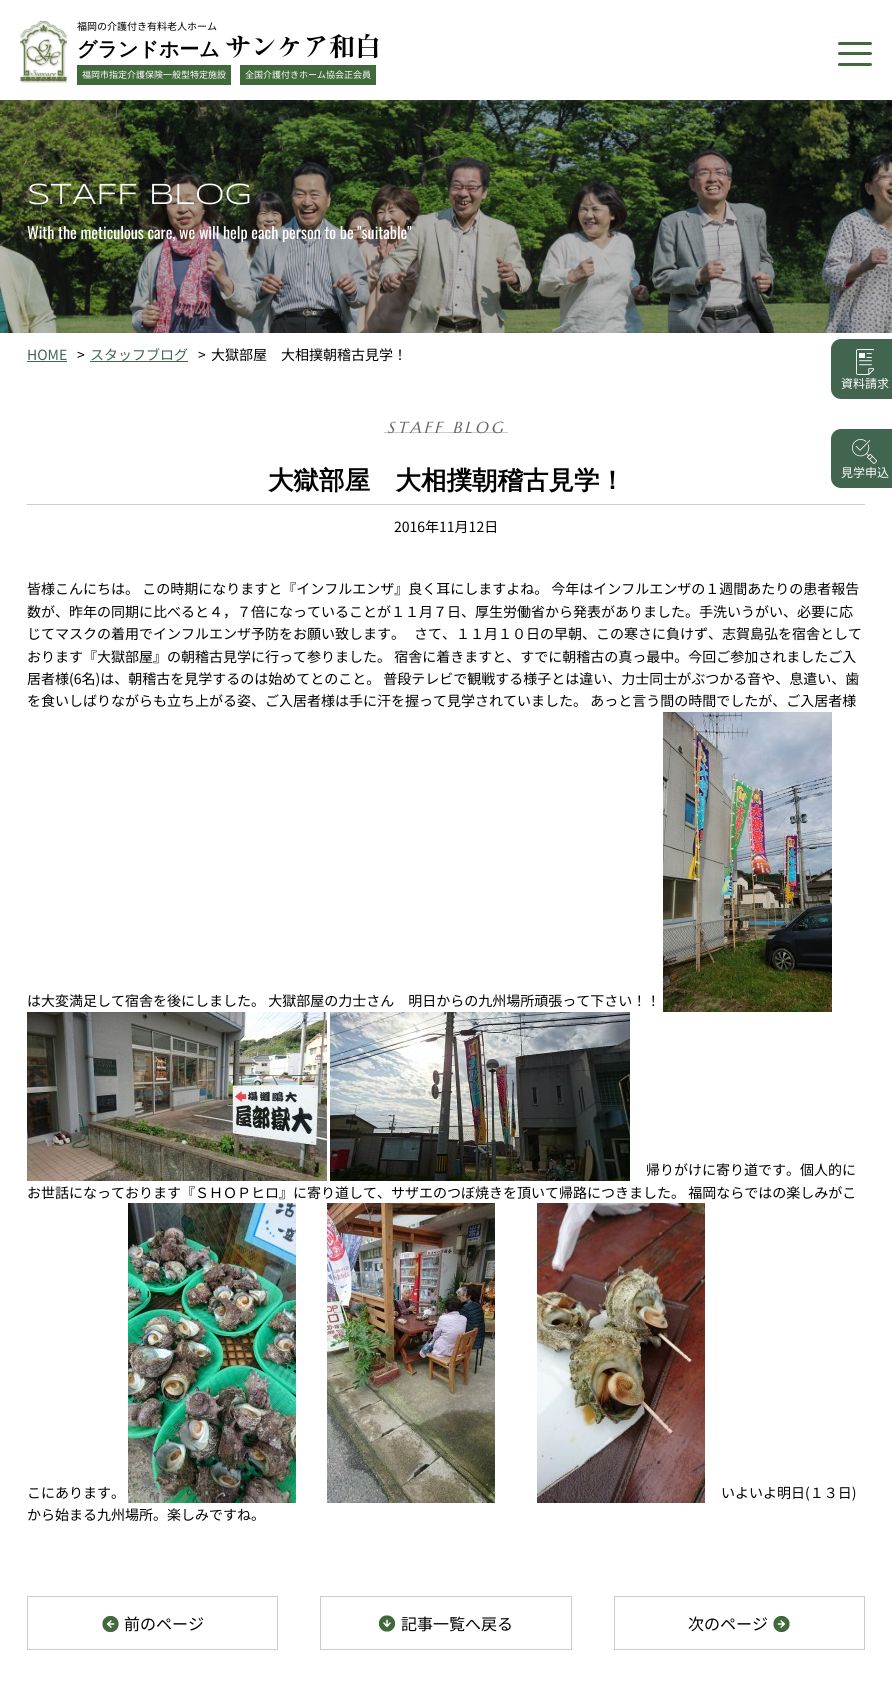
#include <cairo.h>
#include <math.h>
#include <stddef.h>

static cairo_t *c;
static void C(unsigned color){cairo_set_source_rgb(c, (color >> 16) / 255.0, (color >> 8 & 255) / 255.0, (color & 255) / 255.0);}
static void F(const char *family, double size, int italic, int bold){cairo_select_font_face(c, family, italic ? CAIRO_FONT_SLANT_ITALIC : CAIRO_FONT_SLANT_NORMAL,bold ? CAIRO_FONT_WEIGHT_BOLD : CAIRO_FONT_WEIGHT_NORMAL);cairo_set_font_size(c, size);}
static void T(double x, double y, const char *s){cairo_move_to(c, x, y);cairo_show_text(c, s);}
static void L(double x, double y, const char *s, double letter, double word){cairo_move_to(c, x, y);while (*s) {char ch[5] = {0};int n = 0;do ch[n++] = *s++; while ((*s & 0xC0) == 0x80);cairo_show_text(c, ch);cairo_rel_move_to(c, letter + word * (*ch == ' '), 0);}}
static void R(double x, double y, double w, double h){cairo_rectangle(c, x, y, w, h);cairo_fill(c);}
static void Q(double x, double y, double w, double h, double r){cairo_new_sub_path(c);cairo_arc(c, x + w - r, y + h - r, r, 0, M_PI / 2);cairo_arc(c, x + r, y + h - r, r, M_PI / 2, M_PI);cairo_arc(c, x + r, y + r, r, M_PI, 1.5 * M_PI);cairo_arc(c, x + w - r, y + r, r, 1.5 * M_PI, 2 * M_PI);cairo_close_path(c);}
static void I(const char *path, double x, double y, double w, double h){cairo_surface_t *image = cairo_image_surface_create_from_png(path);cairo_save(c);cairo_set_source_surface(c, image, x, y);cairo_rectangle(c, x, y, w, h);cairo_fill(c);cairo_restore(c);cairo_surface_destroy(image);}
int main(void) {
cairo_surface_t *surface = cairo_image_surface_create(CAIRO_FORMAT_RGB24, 892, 1697);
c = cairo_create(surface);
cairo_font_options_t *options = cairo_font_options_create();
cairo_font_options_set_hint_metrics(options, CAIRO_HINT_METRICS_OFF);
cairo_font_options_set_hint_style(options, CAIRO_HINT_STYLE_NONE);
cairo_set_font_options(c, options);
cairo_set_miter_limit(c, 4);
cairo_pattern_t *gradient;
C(0xffffff);
cairo_paint(c);
I("2.png",0,100,892,233);
gradient = cairo_pattern_create_linear(446,105,446,0);
cairo_pattern_add_color_stop_rgba(gradient,0,1,1,1,0);
cairo_pattern_add_color_stop_rgba(gradient,1,1,1,1,1);
cairo_set_source(c,gradient);
cairo_pattern_destroy(gradient);
R(0,100,892,3);
I("1.png",20,21,47,62);
F("Noto Sans JP",10,0,0);
C(0x000000);
T(77,30,"福岡の介護付き有料老人ホーム");
F("WenQuanYi Zen Hei",20,0,1);
T(77,56,"グランドホーム");
F("Shippori Mincho",26,0,1);
T(225,56,"サンケア和白");
C(0x41693b);
R(77,65,154,20);
F("Noto Sans JP",9,0,0);
C(0xffffff);
T(82,78,"福岡市指定介護保険一般型特定施設");
C(0x41693b);
R(240,65,136,20);
C(0xffffff);
T(245,78,"全国介護付きホーム協会正会員");
C(0x41693b);
Q(838,42,34,3,1.5);
cairo_fill(c);
Q(838,52,34,3,1.5);
cairo_fill(c);
Q(838,63,34,3,1.5);
cairo_fill(c);
F("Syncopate",30,0,0);
C(0xffffff);
T(27,204,"STAFF BLOG");
F("Oswald",16,0,0);
T(27,239,"With the meticulous care, we will help each person to be \"suitable\"");
F("Noto Sans JP",14,0,0);
C(0x41654f);
T(27,360,"HOME");
R(27,361,40,1);
C(0x000000);
T(77,360,">");
C(0x41654f);
R(90,361,98,1);
T(90,360,"スタッフブログ");
C(0x000000);
T(198,360,">");
T(211,360,"大獄部屋　大相撲朝稽古見学！");
C(0xcccccc);
R(384,432,124,1);
F("Marcellus SC",16,1,0);
C(0x666666);
L(387,433,"STAFF BLOG",3,0);
C(0xcccccc);
R(27,504,838,1);
F("WenQuanYi Zen Hei",25.5,0,1);
C(0x000000);
T(268,489,"大獄部屋　大相撲朝稽古見学！");
F("Noto Sans JP",14,0,0);
T(394,532,"2016年11月12日");
T(27,594,"皆様こんにちは。 この時期になりますと『インフルエンザ』良く耳にしますよね。 今年はインフルエンザの１週間あたりの患者報告");
T(27,617,"数が、昨年の同期に比べると４，７倍になっていることが１１月７日、厚生労働省から発表がありました。手洗いうがい、必要に応");
T(27,639,"じてマスクの着用でインフルエンザ予防をお願い致します。");
T(414,639,"さて、１１月１０日の早朝、この寒さに負けず、志賀島弘を宿舎として");
T(27,662,"おります『大獄部屋』の朝稽古見学に行って参りました。 宿舎に着きますと、すでに朝稽古の真っ最中。今回ご参加されましたご入");
T(27,684,"居者様(6名)は、朝稽古を見学するのは始めてとのこと。 普段テレビで観戦する様子とは違い、力士同士がぶつかる音や、息遣い、歯");
T(27,706,"を食いしばりながらも立ち上がる姿、ご入居者様は手に汗を握って見学されていました。 あっと言う間の時間でしたが、ご入居者様");
T(27,1006,"は大変満足して宿舎を後にしました。 大獄部屋の力士さん　明日からの九州場所頑張って下さい！！");
I("3.png",663,712,169,300);
I("4.png",27,1012,300,169);
I("5.png",330,1012,300,169);
T(646,1175,"帰りがけに寄り道です。個人的に");
T(27,1198,"お世話になっております『ＳＨＯＰヒロ』に寄り道して、サザエのつぼ焼きを頂いて帰路につきました。 福岡ならではの楽しみがこ");
T(27,1498,"こにあります。");
I("6.png",128,1203,168,300);
I("7.png",327,1203,168,300);
I("8.png",537,1203,168,300);
T(721,1498,"いよいよ明日(１３日)");
T(27,1520,"から始まる九州場所。楽しみですね。");
cairo_rectangle(c,27.5,1596.5,250,53);
C(0xcccccc);
cairo_set_line_width(c,1);
cairo_stroke(c);
I("9.png",102,1616,17,16);
F("Noto Sans JP",16,0,0);
C(0x000000);
T(124,1630,"前のページ");
cairo_rectangle(c,320.5,1596.5,251,53);
C(0xcccccc);
cairo_stroke(c);
I("10.png",379,1615,16,17);
C(0x000000);
T(401,1630,"記事一覧へ戻る");
cairo_rectangle(c,614.5,1596.5,250,53);
C(0xcccccc);
cairo_stroke(c);
C(0x000000);
T(688,1630,"次のページ");
I("11.png",773,1616,17,16);
C(0x41654f);
cairo_new_path(c);
cairo_move_to(c,841,339);
cairo_line_to(c,892,339);
cairo_line_to(c,892,399);
cairo_line_to(c,841,399);
cairo_curve_to(c,835.5,399,831,394.5,831,389);
cairo_line_to(c,831,349);
cairo_curve_to(c,831,343.5,835.5,339,841,339);
cairo_close_path(c);
cairo_fill(c);
I("12.png",856,349,18,26);
F("Noto Sans JP",12,0,0);
C(0xffffff);
T(841,388,"資料請求");
C(0x41654f);
cairo_new_path(c);
cairo_move_to(c,841,429);
cairo_line_to(c,892,429);
cairo_line_to(c,892,488);
cairo_line_to(c,841,488);
cairo_curve_to(c,835.5,488,831,483.5,831,478);
cairo_line_to(c,831,439);
cairo_curve_to(c,831,433.5,835.5,429,841,429);
cairo_close_path(c);
cairo_fill(c);
I("13.png",852,439,25,25);
C(0xffffff);
T(841,477,"見学申込");
cairo_surface_write_to_png(surface, "o.png");
cairo_font_options_destroy(options);
cairo_destroy(c);
cairo_surface_destroy(surface);
return 0;
}
